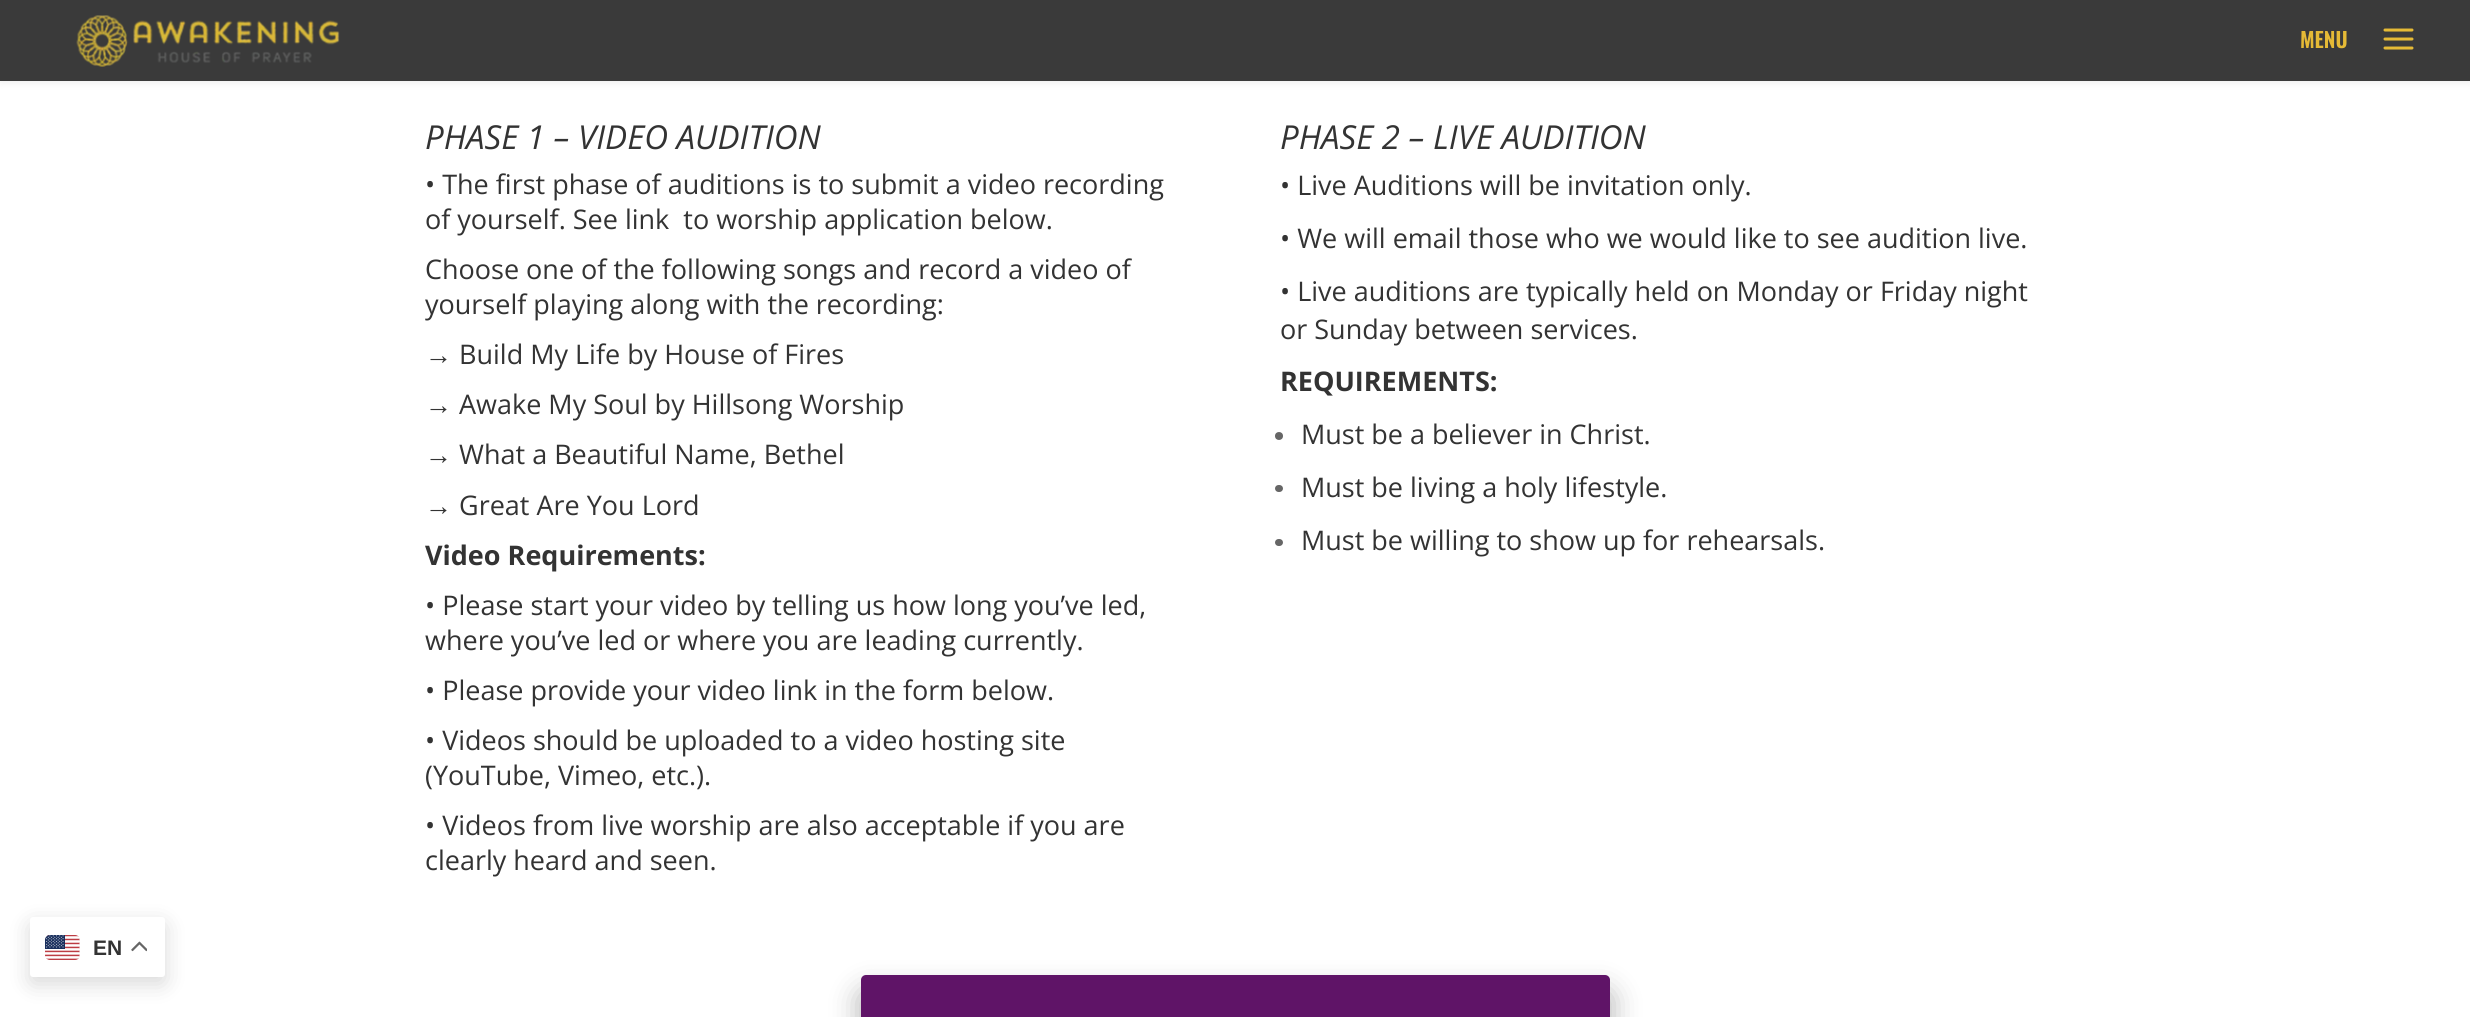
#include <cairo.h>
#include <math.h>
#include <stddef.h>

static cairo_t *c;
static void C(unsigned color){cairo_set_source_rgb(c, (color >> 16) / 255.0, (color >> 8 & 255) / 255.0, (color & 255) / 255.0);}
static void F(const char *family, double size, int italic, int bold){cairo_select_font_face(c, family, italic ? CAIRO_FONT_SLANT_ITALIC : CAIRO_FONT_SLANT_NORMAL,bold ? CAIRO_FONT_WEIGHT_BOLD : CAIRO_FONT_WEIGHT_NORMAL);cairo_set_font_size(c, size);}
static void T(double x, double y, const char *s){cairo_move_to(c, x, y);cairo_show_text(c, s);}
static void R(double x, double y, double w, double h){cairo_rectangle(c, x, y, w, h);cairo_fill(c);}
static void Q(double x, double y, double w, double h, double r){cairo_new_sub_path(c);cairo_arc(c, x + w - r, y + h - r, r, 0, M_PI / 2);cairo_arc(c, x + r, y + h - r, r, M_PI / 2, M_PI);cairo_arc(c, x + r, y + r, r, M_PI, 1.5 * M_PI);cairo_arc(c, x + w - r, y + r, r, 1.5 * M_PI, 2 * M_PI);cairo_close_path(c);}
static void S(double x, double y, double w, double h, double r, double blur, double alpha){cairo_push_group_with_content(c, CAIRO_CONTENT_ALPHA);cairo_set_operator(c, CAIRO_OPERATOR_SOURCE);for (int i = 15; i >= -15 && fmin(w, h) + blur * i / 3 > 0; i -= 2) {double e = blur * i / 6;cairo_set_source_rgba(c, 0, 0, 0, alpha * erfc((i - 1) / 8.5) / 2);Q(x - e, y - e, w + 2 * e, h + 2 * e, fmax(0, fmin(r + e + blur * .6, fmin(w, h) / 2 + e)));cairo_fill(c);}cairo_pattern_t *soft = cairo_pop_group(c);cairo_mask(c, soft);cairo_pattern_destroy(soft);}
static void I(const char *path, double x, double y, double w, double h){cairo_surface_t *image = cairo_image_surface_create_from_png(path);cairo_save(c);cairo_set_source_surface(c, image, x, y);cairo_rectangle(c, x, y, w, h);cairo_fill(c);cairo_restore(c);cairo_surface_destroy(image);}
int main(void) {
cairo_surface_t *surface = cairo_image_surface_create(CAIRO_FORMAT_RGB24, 2470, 1017);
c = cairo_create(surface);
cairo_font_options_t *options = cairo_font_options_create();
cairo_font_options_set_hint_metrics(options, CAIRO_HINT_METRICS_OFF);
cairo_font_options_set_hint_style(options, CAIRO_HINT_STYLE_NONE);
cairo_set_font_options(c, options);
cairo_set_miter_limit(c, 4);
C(0xffffff);
cairo_paint(c);
C(0x000000);
S(0,0,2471,81,0,5,.1);
C(0x3a3a3a);
R(0,0,2470,81);
I("1.png",76,15,264,52);
F("Oswald SemiBold",21,0,0);
C(0xe5ba36);
T(2300,48,"MENU");
I("2.png",2383,28,31,22);
F("Open Sans",33,1,0);
C(0x333333);
T(425,149,"PHASE 1 – VIDEO AUDITION");
F("Open Sans",27,0,0);
T(425,194,"• The first phase of auditions is to submit a video recording");
T(425,229,"of yourself. See link  to worship application below.");
T(425,279,"Choose one of the following songs and record a video of");
T(425,314,"yourself playing along with the recording:");
F("Liberation Sans",27,0,0);
T(425,364,"→");
F("Open Sans",27,0,0);
T(459,364,"Build My Life by House of Fires");
F("Liberation Sans",27,0,0);
T(425,414,"→");
F("Open Sans",27,0,0);
T(459,414,"Awake My Soul by Hillsong Worship");
F("Liberation Sans",27,0,0);
T(425,464,"→");
F("Open Sans",27,0,0);
T(459,464,"What a Beautiful Name, Bethel");
F("Liberation Sans",27,0,0);
T(425,515,"→");
F("Open Sans",27,0,0);
T(459,515,"Great Are You Lord");
F("Open Sans",27,0,1);
T(425,565,"Video Requirements:");
F("Open Sans",27,0,0);
T(425,615,"• Please start your video by telling us how long you’ve led,");
T(425,650,"where you’ve led or where you are leading currently.");
T(425,700,"• Please provide your video link in the form below.");
T(425,750,"• Videos should be uploaded to a video hosting site");
T(425,785,"(YouTube, Vimeo, etc.).");
T(425,835,"• Videos from live worship are also acceptable if you are");
T(425,870,"clearly heard and seen.");
F("Open Sans",33,1,0);
T(1280,149,"PHASE 2 – LIVE AUDITION");
F("Open Sans",27,0,0);
T(1280,195,"• Live Auditions will be invitation only.");
T(1280,248,"• We will email those who we would like to see audition live.");
T(1280,301,"• Live auditions are typically held on Monday or Friday night");
T(1280,339,"or Sunday between services.");
F("Open Sans",27,0,1);
T(1280,391,"REQUIREMENTS:");
C(0x666666);
cairo_new_path(c);
cairo_arc(c,1279,436,4,0,2 * M_PI);
cairo_fill(c);
F("Open Sans",27,0,0);
C(0x333333);
T(1301,444,"Must be a believer in Christ.");
C(0x666666);
Q(1275,485,8,7,3.5);
cairo_fill(c);
C(0x333333);
T(1301,497,"Must be living a holy lifestyle.");
C(0x666666);
Q(1275,539,8,7,3.5);
cairo_fill(c);
C(0x333333);
T(1301,550,"Must be willing to show up for rehearsals.");
C(0x000000);
S(857,989,757,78,9,13.5,.26);
C(0x5f1467);
Q(861,975,749,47,5);
cairo_fill(c);
C(0x000000);
S(30,924,135,60,3,11,.15);
C(0xffffff);
Q(30,917,135,60,3);
cairo_fill(c);
I("3.png",45,935,35,25);
F("Liberation Sans",21,0,1);
C(0x333333);
T(93,955,"EN");
I("4.png",131,941,16,11);
cairo_surface_write_to_png(surface, "o.png");
cairo_font_options_destroy(options);
cairo_destroy(c);
cairo_surface_destroy(surface);
return 0;
}
